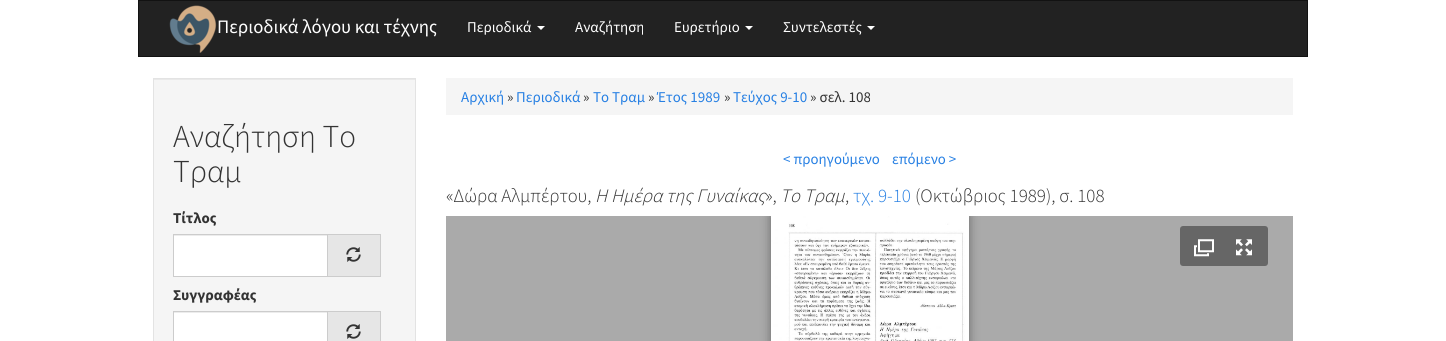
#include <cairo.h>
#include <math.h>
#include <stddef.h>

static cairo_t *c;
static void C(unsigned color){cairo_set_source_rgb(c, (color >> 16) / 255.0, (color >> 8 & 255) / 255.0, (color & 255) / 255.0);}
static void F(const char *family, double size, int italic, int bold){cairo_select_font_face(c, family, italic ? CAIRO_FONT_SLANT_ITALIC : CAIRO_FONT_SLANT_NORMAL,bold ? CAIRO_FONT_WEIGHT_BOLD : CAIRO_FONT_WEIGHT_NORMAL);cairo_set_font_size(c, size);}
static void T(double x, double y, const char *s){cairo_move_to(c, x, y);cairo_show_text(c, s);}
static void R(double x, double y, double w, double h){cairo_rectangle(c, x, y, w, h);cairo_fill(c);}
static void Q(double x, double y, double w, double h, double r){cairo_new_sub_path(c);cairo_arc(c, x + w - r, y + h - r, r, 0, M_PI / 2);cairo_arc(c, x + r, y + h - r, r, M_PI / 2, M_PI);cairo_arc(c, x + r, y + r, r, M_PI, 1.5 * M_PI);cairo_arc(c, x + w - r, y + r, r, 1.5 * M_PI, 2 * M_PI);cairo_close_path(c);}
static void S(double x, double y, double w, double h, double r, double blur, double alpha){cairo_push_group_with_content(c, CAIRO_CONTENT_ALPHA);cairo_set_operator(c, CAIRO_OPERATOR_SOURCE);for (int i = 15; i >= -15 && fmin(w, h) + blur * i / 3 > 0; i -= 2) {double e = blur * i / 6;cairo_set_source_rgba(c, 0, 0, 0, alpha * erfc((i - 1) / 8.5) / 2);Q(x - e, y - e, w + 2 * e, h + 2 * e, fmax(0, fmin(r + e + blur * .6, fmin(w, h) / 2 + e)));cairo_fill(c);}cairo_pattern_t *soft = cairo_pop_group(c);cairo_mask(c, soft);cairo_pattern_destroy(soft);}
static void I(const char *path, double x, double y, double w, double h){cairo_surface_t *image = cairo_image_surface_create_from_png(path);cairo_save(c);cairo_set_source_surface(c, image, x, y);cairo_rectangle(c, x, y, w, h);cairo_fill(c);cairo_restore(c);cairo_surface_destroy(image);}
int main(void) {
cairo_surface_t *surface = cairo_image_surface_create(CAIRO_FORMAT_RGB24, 1446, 341);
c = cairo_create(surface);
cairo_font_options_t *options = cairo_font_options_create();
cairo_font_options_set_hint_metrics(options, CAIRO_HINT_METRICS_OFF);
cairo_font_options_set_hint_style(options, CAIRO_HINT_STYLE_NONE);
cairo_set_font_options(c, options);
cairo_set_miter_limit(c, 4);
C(0xffffff);
cairo_paint(c);
C(0x222222);
cairo_rectangle(c,138.5,.5,1169,56);
cairo_fill_preserve(c);
C(0x121212);
cairo_set_line_width(c,1);
cairo_stroke(c);
I("1.png",169,5,48,48);
F("Source Sans Pro",19,0,0);
C(0xffffff);
T(217,33,"Περιοδικά λόγου και τέχνης");
F("Source Sans Pro",15,0,0);
T(467,32,"Περιοδικά");
cairo_new_path(c);
cairo_move_to(c,537,26);
cairo_line_to(c,545,26);
cairo_line_to(c,541,30);
cairo_close_path(c);
cairo_fill(c);
T(575,32,"Αναζήτηση");
T(674,32,"Ευρετήριο");
cairo_new_path(c);
cairo_move_to(c,745,26);
cairo_line_to(c,753,26);
cairo_line_to(c,749,30);
cairo_close_path(c);
cairo_fill(c);
T(783,32,"Συντελεστές");
cairo_new_path(c);
cairo_move_to(c,867,26);
cairo_line_to(c,875,26);
cairo_line_to(c,871,30);
cairo_close_path(c);
cairo_fill(c);
C(0xf5f5f5);
R(154,80,261,261);
C(0xe9e9e9);
R(154,79,261,1);
cairo_rectangle(c,153.5,78.5,262,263);
C(0xe3e3e3);
cairo_stroke(c);
F("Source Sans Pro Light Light",32,0,0);
C(0x333333);
T(173,147,"Αναζήτηση Το");
T(173,182,"Τραμ");
F("Source Sans Pro",15,0,1);
T(173,223,"Τίτλος");
C(0xffffff);
R(174,236,153,40);
C(0xececec);
R(174,235,153,1);
cairo_rectangle(c,173.5,234.5,154,42);
C(0xcccccc);
cairo_stroke(c);
C(0xe6e6e6);
R(328,235,52,41);
C(0xcccccc);
R(328,234,53,1);
R(380,234,1,43);
R(328,276,53,1);
I("2.png",346,247,15,15);
C(0x333333);
T(173,300,"Συγγραφέας");
C(0xffffff);
R(174,313,153,28);
C(0xececec);
R(174,312,153,1);
cairo_rectangle(c,173.5,311.5,154,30);
C(0xcccccc);
cairo_stroke(c);
C(0xe6e6e6);
R(328,312,52,29);
C(0xcccccc);
R(328,311,53,1);
R(380,311,1,30);
I("2.png",346,324,15,15);
C(0xf5f5f5);
R(446,78,847,37);
F("Source Sans Pro",15,0,0);
C(0x2780e3);
T(461,102,"Αρχική");
C(0x333333);
T(507,102,"»");
C(0x2780e3);
T(516,102,"Περιοδικά");
C(0x333333);
T(583,102,"»");
C(0x2780e3);
T(593,102,"Το Τραμ");
C(0x333333);
T(648,102,"»");
C(0x2780e3);
T(657,102,"Έτος 1989");
C(0x333333);
T(724,102,"»");
C(0x2780e3);
T(733,102,"Τεύχος 9-10");
C(0x333333);
T(810,102,"» σελ. 108");
C(0x2780e3);
T(783,164,"< προηγούμενο");
T(892,164,"επόμενο >");
F("Source Sans Pro Light Light",19,0,0);
C(0x333333);
T(446,202,"«Δώρα Αλμπέρτου,");
F("Source Sans Pro Light Light",19,1,0);
T(595,202,"Η Ημέρα της Γυναίκας");
F("Source Sans Pro Light Light",19,0,0);
T(765,202,"»,");
F("Source Sans Pro Light Light",19,1,0);
T(780,202,"Το Τραμ");
F("Source Sans Pro Light Light",19,0,0);
T(845,202,",");
C(0x2780e3);
T(853,202,"τχ. 9-10");
C(0x333333);
T(915,202,"(Οκτώβριος 1989), σ. 108");
C(0xaaaaaa);
R(446,216,847,125);
cairo_save(c);
cairo_rectangle(c,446,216,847,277);
cairo_clip(c);
C(0x000000);
S(771,216,198,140,0,5,.4);
cairo_restore(c);
I("3.png",771,216,198,125);
C(0x666666);
Q(1180,226,88,40,3);
cairo_fill(c);
I("4.png",1194,239,20,18);
I("5.png",1236,239,16,17);
cairo_surface_write_to_png(surface, "o.png");
cairo_font_options_destroy(options);
cairo_destroy(c);
cairo_surface_destroy(surface);
return 0;
}
